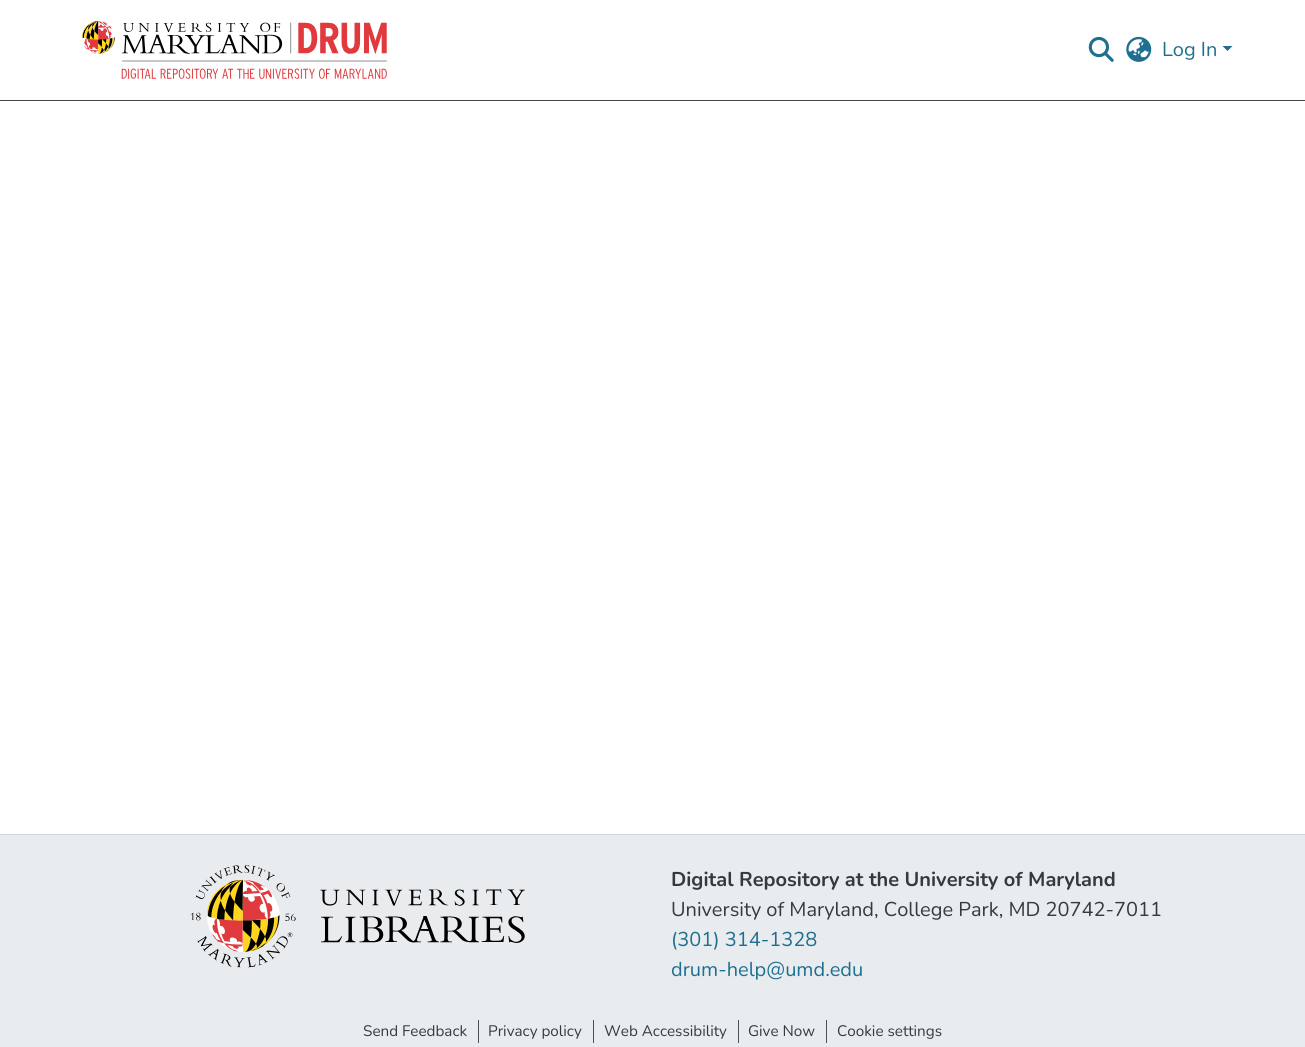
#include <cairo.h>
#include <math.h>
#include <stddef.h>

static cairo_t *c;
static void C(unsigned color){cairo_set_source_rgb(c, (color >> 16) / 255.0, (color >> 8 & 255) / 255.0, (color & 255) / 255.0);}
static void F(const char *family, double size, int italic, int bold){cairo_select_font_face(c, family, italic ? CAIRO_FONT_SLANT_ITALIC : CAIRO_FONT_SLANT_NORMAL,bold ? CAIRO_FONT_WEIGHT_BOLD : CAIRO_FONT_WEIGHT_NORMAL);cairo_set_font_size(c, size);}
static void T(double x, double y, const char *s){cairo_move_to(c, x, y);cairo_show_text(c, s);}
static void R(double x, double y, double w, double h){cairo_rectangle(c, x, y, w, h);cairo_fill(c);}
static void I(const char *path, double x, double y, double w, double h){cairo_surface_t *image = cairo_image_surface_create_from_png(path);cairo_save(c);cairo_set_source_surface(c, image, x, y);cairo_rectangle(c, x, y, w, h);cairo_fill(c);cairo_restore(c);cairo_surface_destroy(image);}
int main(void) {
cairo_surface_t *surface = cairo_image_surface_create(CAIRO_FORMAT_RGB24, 1305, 1047);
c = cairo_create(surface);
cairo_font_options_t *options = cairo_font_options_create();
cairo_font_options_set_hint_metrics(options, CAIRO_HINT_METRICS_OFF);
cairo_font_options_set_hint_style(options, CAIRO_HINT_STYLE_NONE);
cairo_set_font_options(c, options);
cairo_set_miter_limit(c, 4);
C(0xffffff);
cairo_paint(c);
C(0x454545);
R(0,100,1305,1);
I("1.png",81,20,306,59);
I("2.png",1088,36,26,26);
I("3.png",1126,36,26,26);
F("Nunito",20,0,0);
C(0x1e6f90);
T(1162,56,"Log In");
cairo_new_path(c);
cairo_move_to(c,1222.5,46);
cairo_line_to(c,1232.5,46);
cairo_line_to(c,1227.5,51);
cairo_close_path(c);
cairo_fill(c);
C(0xe9ecef);
R(0,835,1305,212);
C(0xced4da);
R(0,834,1305,1);
I("4.png",190,865,335,103);
F("Nunito",20,0,1);
C(0x343a40);
T(671,886,"Digital Repository at the University of Maryland");
F("Nunito",20,0,0);
T(671,916,"University of Maryland, College Park, MD 20742-7011");
C(0x1e6f90);
T(671,946,"(301) 314-1328");
T(671,976,"drum-help@umd.edu");
F("Nunito",15.25,0,0);
C(0x343a40);
T(363,1036,"Send Feedback");
C(0x495057);
R(478,1020,1,23);
C(0x343a40);
T(488,1036,"Privacy policy");
C(0x495057);
R(593,1020,1,23);
C(0x343a40);
T(604,1036,"Web Accessibility");
C(0x495057);
R(738,1020,1,23);
C(0x343a40);
T(748,1036,"Give Now");
C(0x495057);
R(826,1020,1,23);
C(0x343a40);
T(837,1036,"Cookie settings");
cairo_surface_write_to_png(surface, "o.png");
cairo_font_options_destroy(options);
cairo_destroy(c);
cairo_surface_destroy(surface);
return 0;
}
